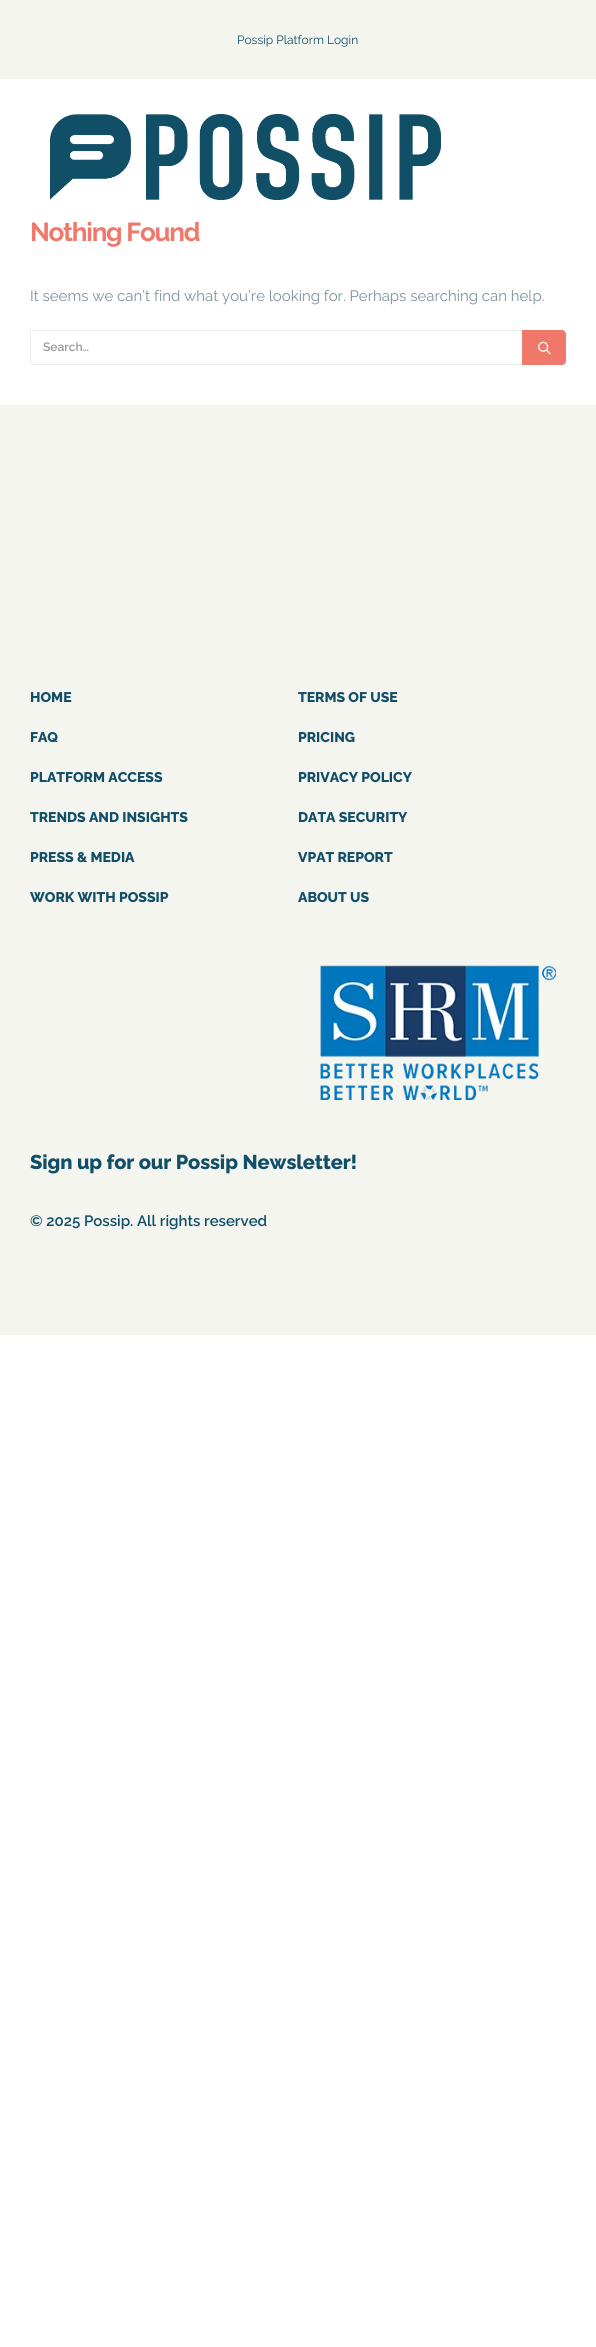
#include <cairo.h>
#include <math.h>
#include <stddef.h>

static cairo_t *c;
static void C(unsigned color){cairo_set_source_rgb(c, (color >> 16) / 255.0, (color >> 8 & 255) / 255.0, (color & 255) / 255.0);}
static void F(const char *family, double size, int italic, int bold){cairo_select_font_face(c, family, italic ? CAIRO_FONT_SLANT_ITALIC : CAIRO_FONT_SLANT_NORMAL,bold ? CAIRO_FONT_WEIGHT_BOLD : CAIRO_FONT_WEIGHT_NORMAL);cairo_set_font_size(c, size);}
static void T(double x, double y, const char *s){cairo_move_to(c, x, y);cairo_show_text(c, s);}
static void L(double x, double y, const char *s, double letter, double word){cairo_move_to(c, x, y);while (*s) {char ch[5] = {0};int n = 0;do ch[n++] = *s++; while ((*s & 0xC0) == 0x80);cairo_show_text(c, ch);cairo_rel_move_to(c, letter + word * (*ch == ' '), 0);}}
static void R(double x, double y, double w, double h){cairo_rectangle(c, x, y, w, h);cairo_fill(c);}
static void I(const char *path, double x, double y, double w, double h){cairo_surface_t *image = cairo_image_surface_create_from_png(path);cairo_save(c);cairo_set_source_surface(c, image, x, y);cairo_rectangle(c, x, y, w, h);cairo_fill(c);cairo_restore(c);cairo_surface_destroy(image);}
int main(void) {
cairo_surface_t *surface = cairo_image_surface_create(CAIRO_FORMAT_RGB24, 596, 2347);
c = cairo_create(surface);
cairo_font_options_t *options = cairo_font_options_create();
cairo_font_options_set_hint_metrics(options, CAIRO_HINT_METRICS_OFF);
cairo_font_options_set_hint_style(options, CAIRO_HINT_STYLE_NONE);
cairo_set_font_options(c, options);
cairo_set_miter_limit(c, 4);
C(0xffffff);
cairo_paint(c);
C(0xf4f5ef);
R(0,0,596,79);
F("Raleway",12,0,0);
C(0x114e67);
T(237,44,"Possip Platform Login");
I("1.png",50,114,391,86);
F("Raleway",26,0,1);
C(0xef786a);
L(30,241,"Nothing Found",-1.25,0);
F("Raleway",15,0,0);
C(0x7a929f);
T(30,301,"It seems we can’t find what you’re looking for. Perhaps searching can help.");
cairo_new_path(c);
cairo_move_to(c,33,330.5);
cairo_line_to(c,522.5,330.5);
cairo_line_to(c,522.5,364.5);
cairo_line_to(c,33,364.5);
cairo_curve_to(c,31.5,364.5,30.5,363.5,30.5,362);
cairo_line_to(c,30.5,333);
cairo_curve_to(c,30.5,331.5,31.5,330.5,33,330.5);
cairo_close_path(c);
C(0xebebeb);
cairo_set_line_width(c,1);
cairo_stroke(c);
F("Raleway SemiBold",12,0,0);
C(0x999999);
T(43,351,"Search…");
C(0xef786a);
cairo_new_path(c);
cairo_move_to(c,522,330);
cairo_line_to(c,562,330);
cairo_curve_to(c,564,330,566,332,566,334);
cairo_line_to(c,566,361);
cairo_curve_to(c,566,363,564,365,562,365);
cairo_line_to(c,522,365);
cairo_close_path(c);
cairo_fill(c);
I("2.png",538,341,13,14);
C(0xf4f5ef);
R(0,405,596,930);
F("Raleway ExtraBold",14,0,0);
C(0x114e67);
T(30,702,"HOME");
T(298,702,"TERMS OF USE");
T(30,742,"FAQ");
T(298,742,"PRICING");
T(30,782,"PLATFORM ACCESS");
T(298,782,"PRIVACY POLICY");
T(30,822,"TRENDS AND INSIGHTS");
T(298,822,"DATA SECURITY");
T(30,862,"PRESS & MEDIA");
T(298,862,"VPAT REPORT");
T(30,902,"WORK WITH POSSIP");
T(298,902,"ABOUT US");
I("3.png",320,965,236,135);
F("Raleway ExtraBold",20,0,0);
L(30,1169,"Sign up for our Possip Newsletter!",-.1,0);
F("Raleway SemiBold",15,0,0);
T(30,1226,"© 2025 Possip. All rights reserved");
cairo_surface_write_to_png(surface, "o.png");
cairo_font_options_destroy(options);
cairo_destroy(c);
cairo_surface_destroy(surface);
return 0;
}
